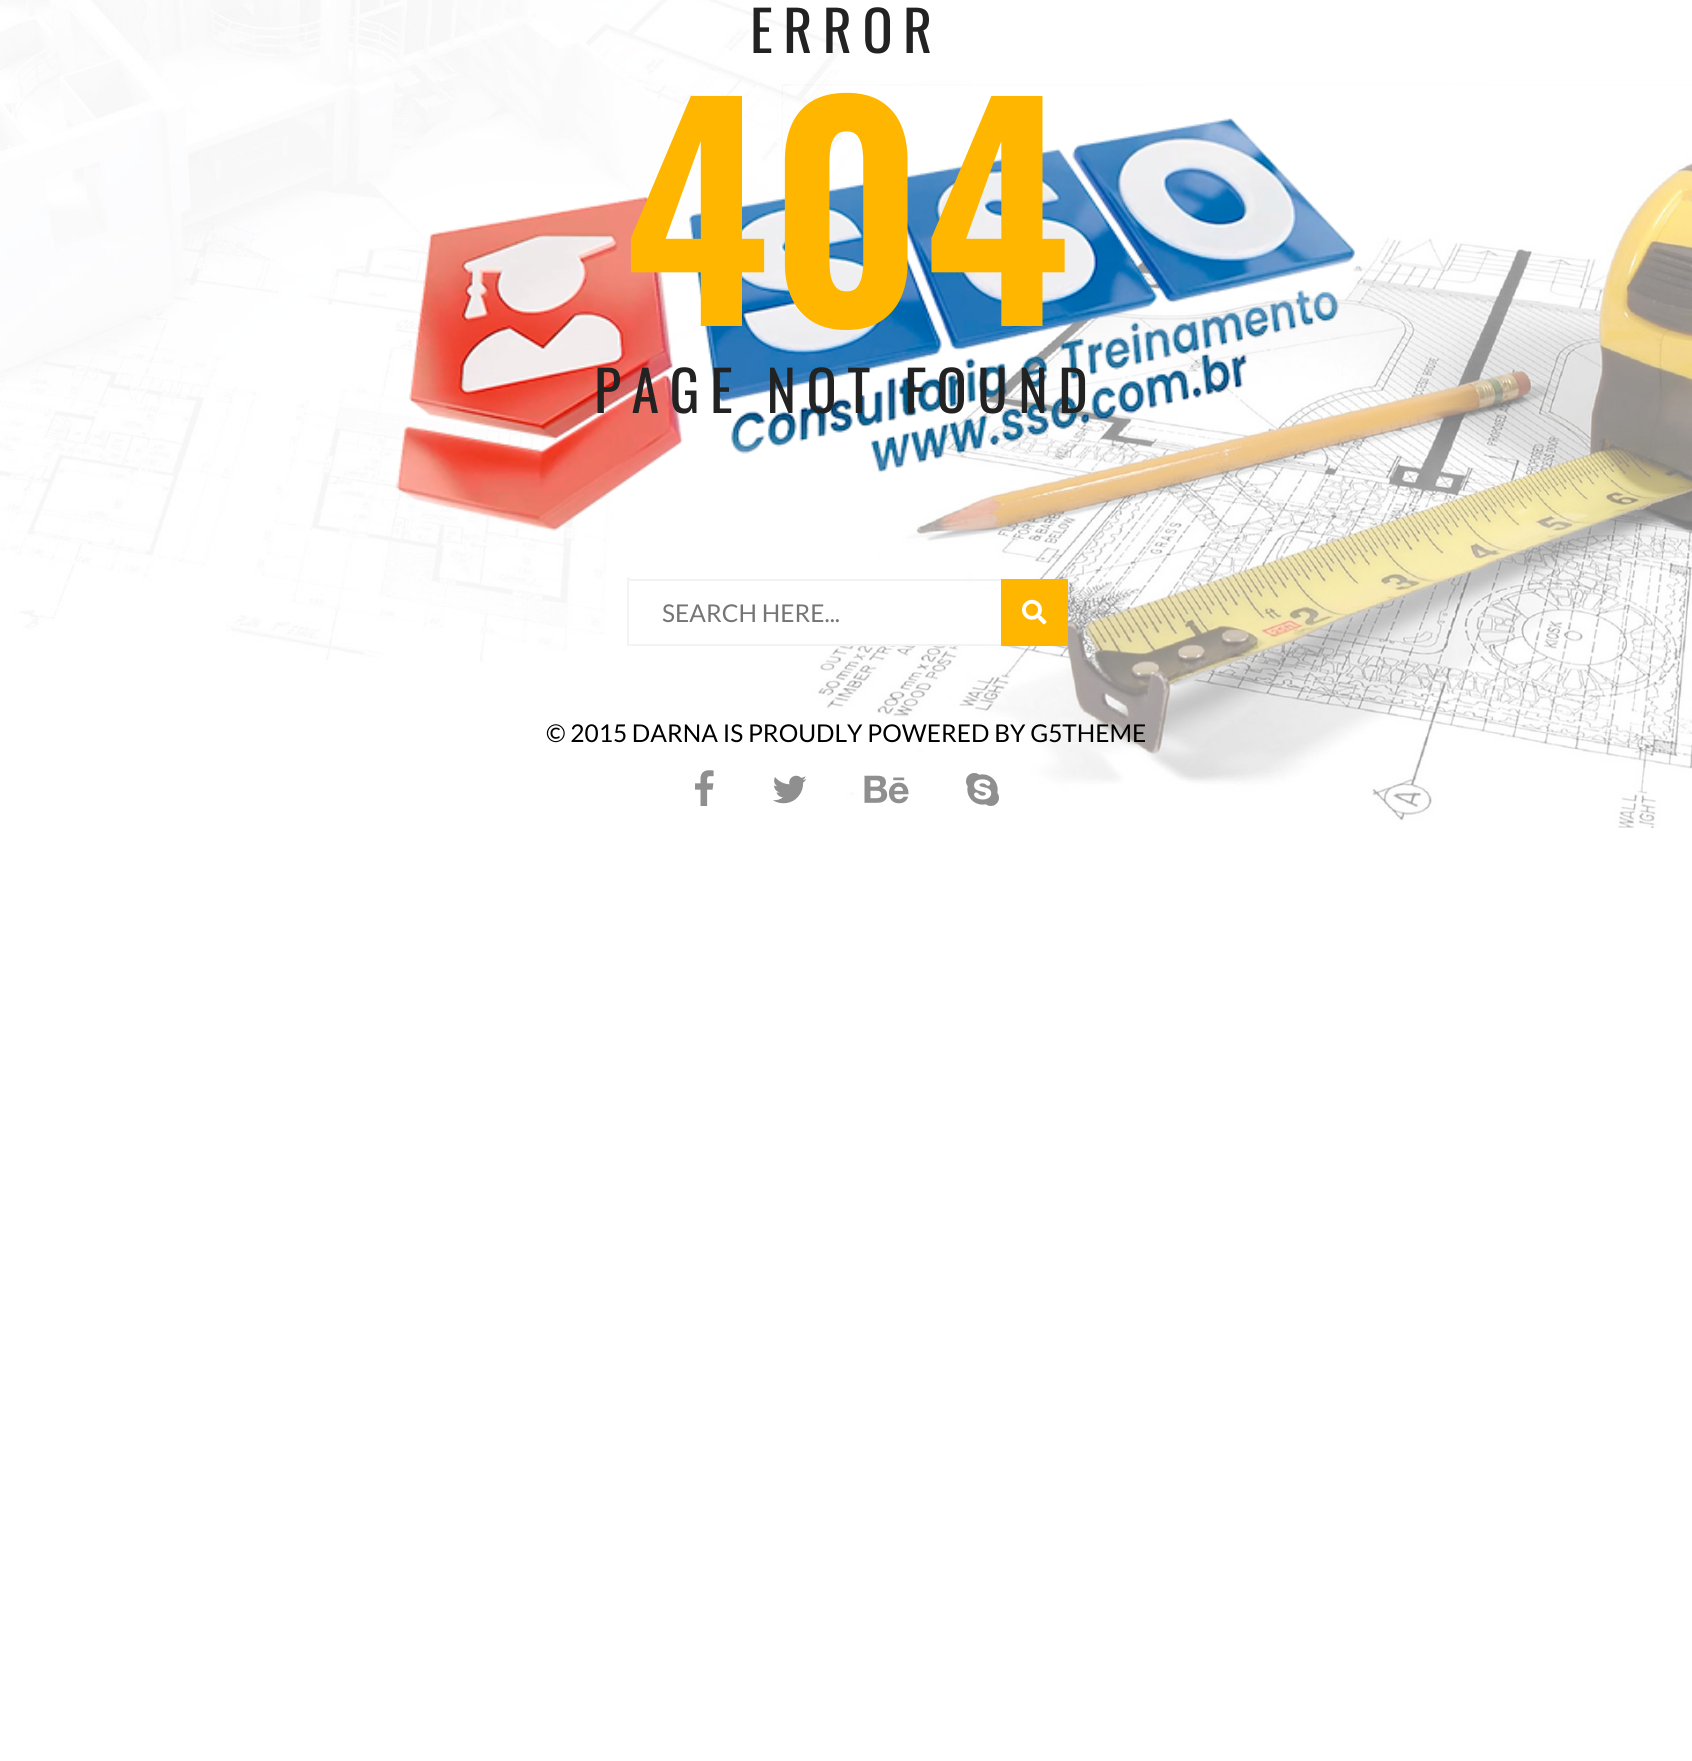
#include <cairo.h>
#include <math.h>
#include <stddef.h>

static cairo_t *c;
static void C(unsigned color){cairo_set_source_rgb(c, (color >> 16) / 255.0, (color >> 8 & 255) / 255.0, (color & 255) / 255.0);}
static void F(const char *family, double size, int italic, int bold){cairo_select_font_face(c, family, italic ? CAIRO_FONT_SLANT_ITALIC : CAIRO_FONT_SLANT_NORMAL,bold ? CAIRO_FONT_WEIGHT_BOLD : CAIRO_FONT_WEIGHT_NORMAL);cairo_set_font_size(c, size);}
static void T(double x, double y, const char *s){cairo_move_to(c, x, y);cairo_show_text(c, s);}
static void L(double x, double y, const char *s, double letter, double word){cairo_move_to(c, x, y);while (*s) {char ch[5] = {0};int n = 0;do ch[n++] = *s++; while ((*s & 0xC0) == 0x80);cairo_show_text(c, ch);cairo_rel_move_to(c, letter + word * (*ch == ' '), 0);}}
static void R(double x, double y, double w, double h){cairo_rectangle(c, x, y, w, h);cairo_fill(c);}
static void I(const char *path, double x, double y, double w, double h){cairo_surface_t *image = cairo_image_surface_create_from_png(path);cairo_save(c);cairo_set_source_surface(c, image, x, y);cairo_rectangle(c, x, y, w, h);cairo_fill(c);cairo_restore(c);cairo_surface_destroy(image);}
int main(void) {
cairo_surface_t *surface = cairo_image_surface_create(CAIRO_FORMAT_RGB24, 1692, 1761);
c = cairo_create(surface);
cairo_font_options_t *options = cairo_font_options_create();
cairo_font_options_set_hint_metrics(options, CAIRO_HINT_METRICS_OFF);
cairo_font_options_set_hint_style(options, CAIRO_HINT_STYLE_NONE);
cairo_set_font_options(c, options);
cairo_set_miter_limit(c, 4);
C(0xffffff);
cairo_paint(c);
I("1.png",0,0,1692,828);
F("Oswald",56,0,0);
C(0x222222);
L(750,53,"ERROR",10.5,0);
I("7.png",395,118,960,462);
F("Oswald SemiBold",284,0,0);
C(0xffb600);
T(623,326,"404");
F("Oswald",56,0,0);
C(0x222222);
L(594,413,"PAGE NOT FOUND",10.5,0);
C(0xffffff);
R(838,590,163,54);
cairo_rectangle(c,628,580,439,65);
C(0xf3f3f3);
cairo_stroke(c);
F("Lato",24.5,0,0);
C(0x757575);
T(662,622,"SEARCH HERE...");
C(0xffb600);
R(1001,579,67,67);
I("2.png",1022,599,25,26);
I("3.png",695,770,19,36);
I("4.png",773,775,34,29);
I("5.png",864,775,45,29);
I("6.png",966,773,33,33);
C(0x000000);
T(546,742,"© 2015 DARNA IS PROUDLY POWERED BY G5THEME");
cairo_surface_write_to_png(surface, "o.png");
cairo_font_options_destroy(options);
cairo_destroy(c);
cairo_surface_destroy(surface);
return 0;
}
